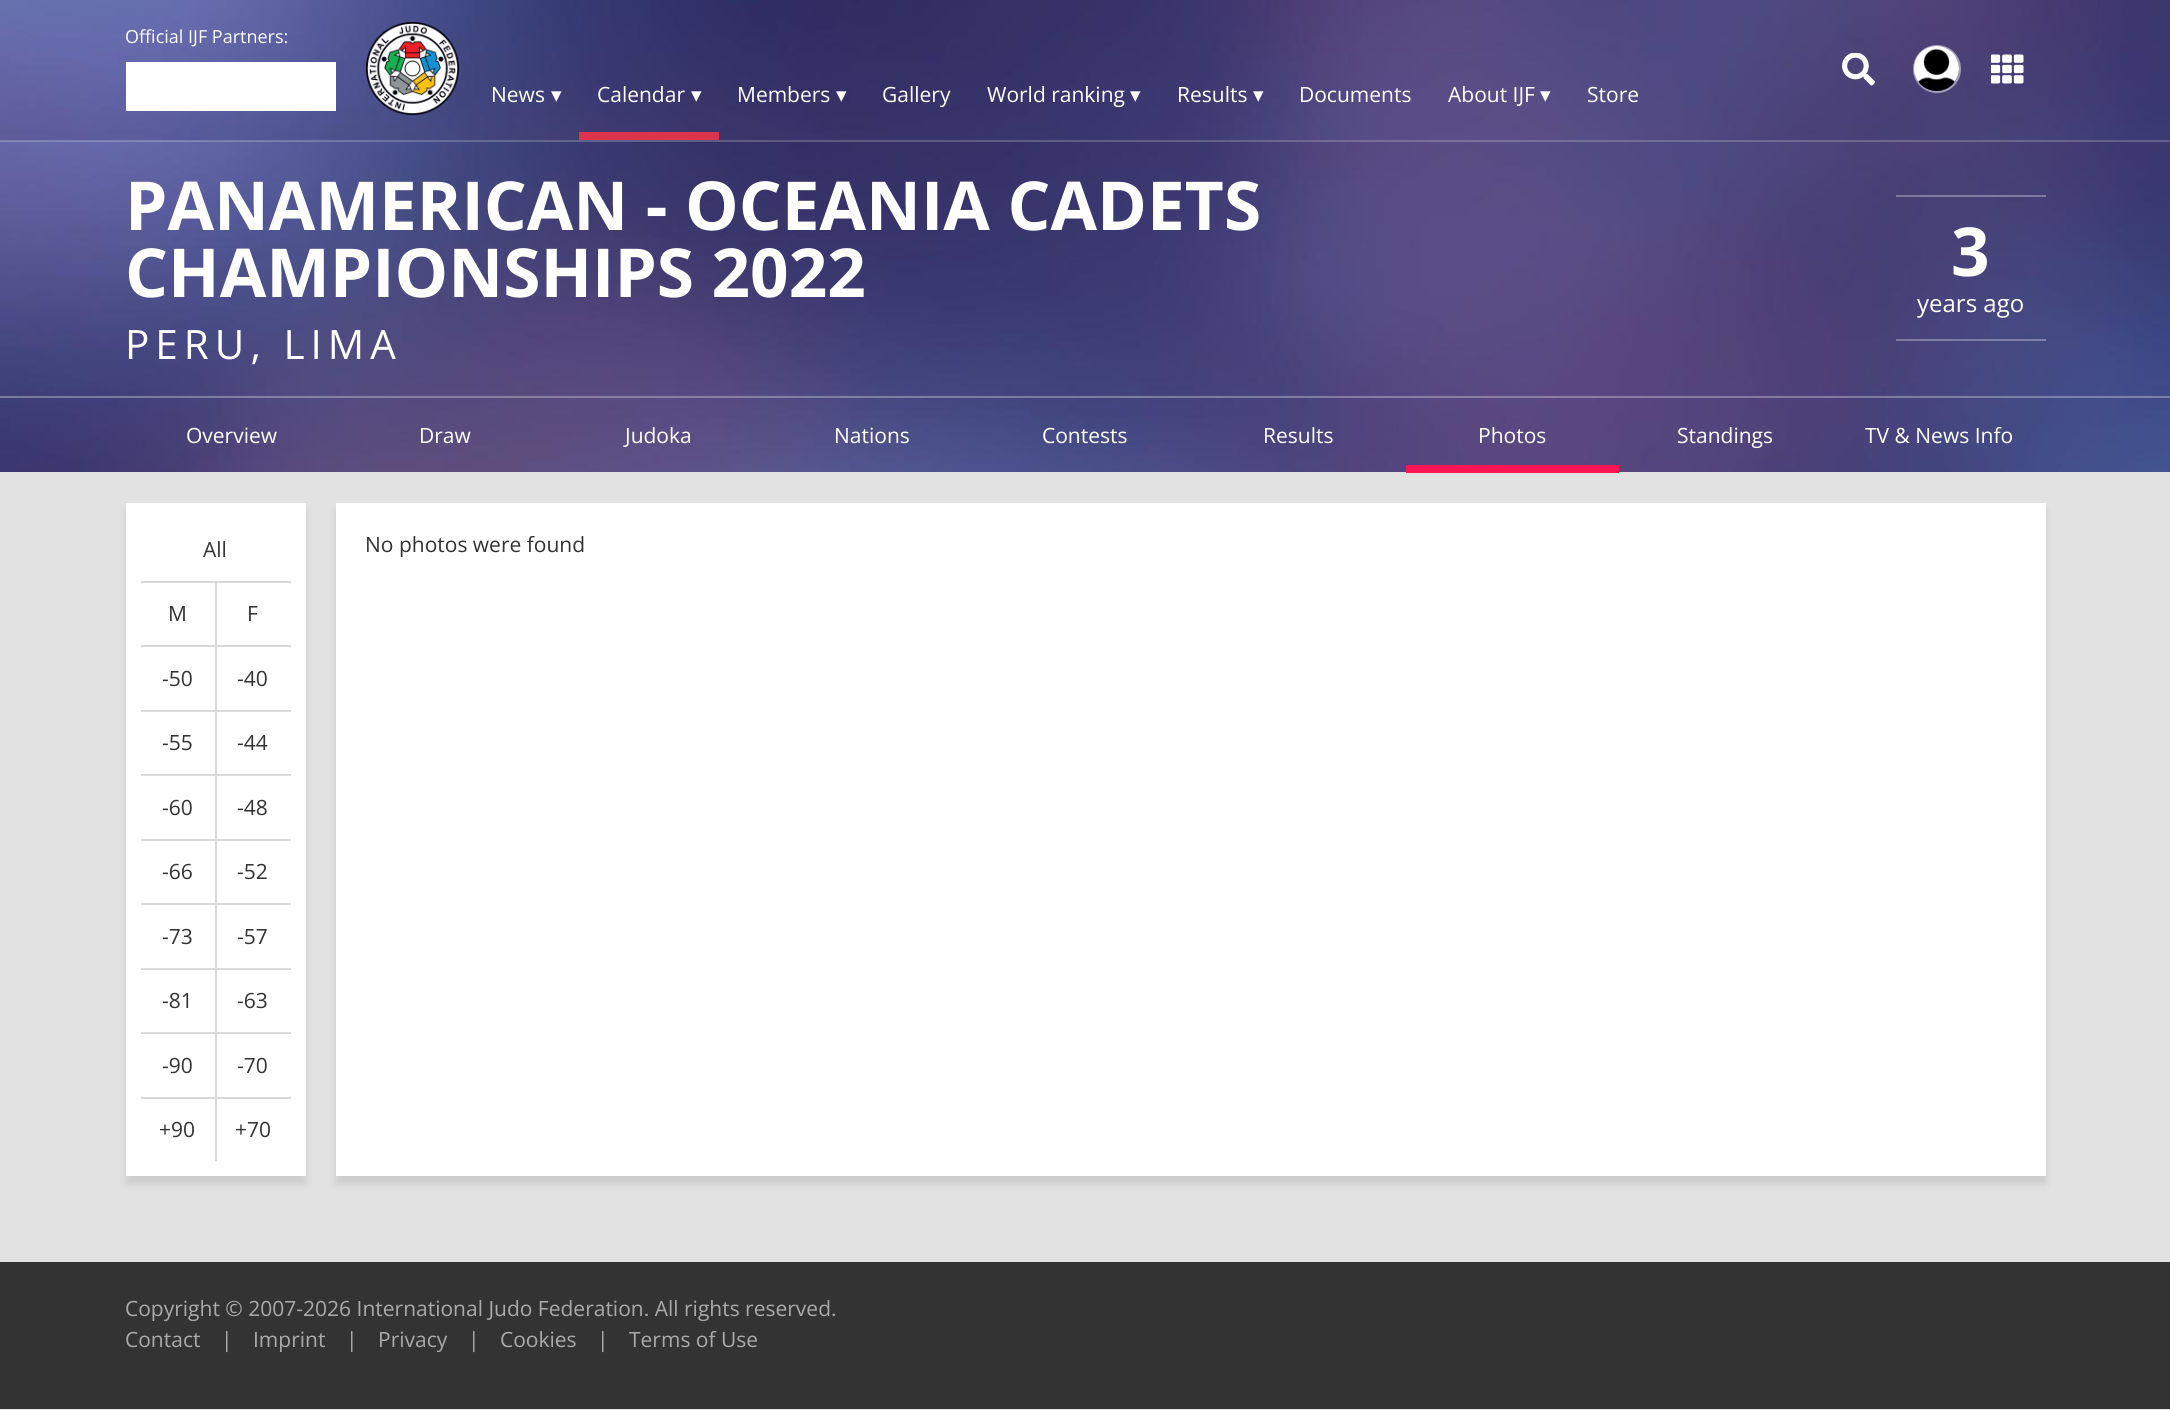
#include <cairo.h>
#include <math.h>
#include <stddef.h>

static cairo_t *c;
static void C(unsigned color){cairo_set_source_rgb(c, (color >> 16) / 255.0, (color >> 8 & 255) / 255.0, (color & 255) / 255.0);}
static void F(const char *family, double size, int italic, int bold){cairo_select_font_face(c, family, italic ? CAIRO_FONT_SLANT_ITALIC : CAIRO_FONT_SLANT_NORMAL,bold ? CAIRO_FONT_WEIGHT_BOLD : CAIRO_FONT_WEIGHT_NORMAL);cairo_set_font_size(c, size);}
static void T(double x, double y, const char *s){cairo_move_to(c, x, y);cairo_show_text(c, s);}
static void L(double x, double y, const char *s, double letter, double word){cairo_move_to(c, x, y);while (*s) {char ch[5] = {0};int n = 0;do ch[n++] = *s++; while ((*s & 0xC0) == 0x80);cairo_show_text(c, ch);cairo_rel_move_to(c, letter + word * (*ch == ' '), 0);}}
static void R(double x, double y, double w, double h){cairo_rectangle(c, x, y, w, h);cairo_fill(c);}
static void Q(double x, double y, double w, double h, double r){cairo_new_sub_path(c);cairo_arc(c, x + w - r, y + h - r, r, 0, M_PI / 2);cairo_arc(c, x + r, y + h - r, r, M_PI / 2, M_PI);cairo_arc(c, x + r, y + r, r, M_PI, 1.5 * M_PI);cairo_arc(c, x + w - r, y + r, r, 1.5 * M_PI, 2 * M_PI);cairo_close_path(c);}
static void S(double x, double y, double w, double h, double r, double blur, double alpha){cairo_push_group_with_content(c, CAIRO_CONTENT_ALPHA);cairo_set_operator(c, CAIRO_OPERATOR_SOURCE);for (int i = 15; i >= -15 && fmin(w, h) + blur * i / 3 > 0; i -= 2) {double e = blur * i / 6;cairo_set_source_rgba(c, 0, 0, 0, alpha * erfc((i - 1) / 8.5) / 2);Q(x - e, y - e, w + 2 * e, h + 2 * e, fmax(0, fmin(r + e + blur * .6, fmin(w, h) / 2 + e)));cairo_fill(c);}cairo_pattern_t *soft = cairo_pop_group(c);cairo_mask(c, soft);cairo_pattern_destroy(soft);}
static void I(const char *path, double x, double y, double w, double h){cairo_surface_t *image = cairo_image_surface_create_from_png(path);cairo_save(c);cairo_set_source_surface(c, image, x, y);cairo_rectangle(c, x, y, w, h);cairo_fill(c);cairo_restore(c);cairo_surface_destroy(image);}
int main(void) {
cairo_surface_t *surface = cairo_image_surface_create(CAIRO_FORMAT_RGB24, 2170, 1410);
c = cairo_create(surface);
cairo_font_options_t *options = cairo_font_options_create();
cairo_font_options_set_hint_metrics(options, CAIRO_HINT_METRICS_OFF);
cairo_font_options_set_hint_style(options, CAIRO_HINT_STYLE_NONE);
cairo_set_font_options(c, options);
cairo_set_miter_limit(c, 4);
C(0xe2e2e2);
cairo_paint(c);
I("6.png",0,140,2170,332);
I("1.png",0,0,2170,141);
cairo_set_source_rgba(c,1,1,1,0.2);
R(0,140,2170,2);
F("Open Sans",18,0,0);
C(0xffffff);
T(125,43,"Official IJF Partners:");
R(126,62,210,49);
I("2.png",366,22,93,93);
I("3.png",1842,53,33,33);
cairo_arc(c,1937,69,23,0,2 * M_PI);
cairo_set_source_rgba(c,1,1,1,0.5);
cairo_stroke(c);
I("4.png",1914,46,45,45);
I("5.png",1991,54,33,30);
F("Open Sans",21,0,0);
C(0xffffff);
T(491,102,"News");
F("DejaVu Sans",21,0,0);
T(551,102,"▾");
F("Open Sans",21,0,0);
T(597,102,"Calendar");
F("DejaVu Sans",21,0,0);
T(691,102,"▾");
C(0xdd344c);
R(579,132,140,8);
F("Open Sans",21,0,0);
C(0xffffff);
T(737,102,"Members");
F("DejaVu Sans",21,0,0);
T(836,102,"▾");
F("Open Sans",21,0,0);
T(882,102,"Gallery");
T(987,102,"World ranking");
F("DejaVu Sans",21,0,0);
T(1130,102,"▾");
F("Open Sans",21,0,0);
T(1177,102,"Results");
F("DejaVu Sans",21,0,0);
T(1253,102,"▾");
F("Open Sans",21,0,0);
T(1299,102,"Documents");
T(1448,102,"About IJF");
F("DejaVu Sans",21,0,0);
T(1540,102,"▾");
F("Open Sans",21,0,0);
T(1587,102,"Store");
F("Open Sans",67.5,0,1);
T(125,230,"PANAMERICAN - OCEANIA CADETS");
T(125,297,"CHAMPIONSHIPS 2022");
F("Open Sans",40.5,0,0);
L(125,359,"PERU, LIMA",6,0);
cairo_set_source_rgba(c,1,1,1,0.3);
R(1896,195,150,2);
R(1896,339,150,2);
F("Open Sans",67.5,0,1);
C(0xffffff);
T(1951,276,"3");
F("Open Sans",24,0,0);
T(1917,312,"years ago");
cairo_set_source_rgba(c,1,1,1,0.3);
R(0,396,2170,2);
F("Open Sans",21,0,0);
C(0xffffff);
T(186,443,"Overview");
T(419,443,"Draw");
T(625,443,"Judoka");
T(834,443,"Nations");
T(1042,443,"Contests");
T(1263,443,"Results");
T(1478,443,"Photos");
C(0xff1553);
R(1406,465,213,8);
C(0xffffff);
T(1677,443,"Standings");
T(1865,443,"TV & News Info");
C(0x000000);
S(126,510,180,674,0,4,.1);
C(0xffffff);
R(126,503,180,673);
C(0xd9d9d9);
R(141,581,150,2);
C(0x333333);
T(203,557,"All");
C(0xd9d9d9);
R(215,582,2,129);
R(141,645,150,2);
C(0x333333);
T(168,621,"M");
T(247,621,"F");
C(0xd9d9d9);
R(141,710,150,2);
C(0x333333);
T(162,686,"-50");
T(237,686,"-40");
C(0xd9d9d9);
R(215,711,2,129);
R(141,774,150,2);
C(0x333333);
T(162,750,"-55");
T(237,750,"-44");
C(0xd9d9d9);
R(141,839,150,2);
C(0x333333);
T(162,815,"-60");
T(237,815,"-48");
C(0xd9d9d9);
R(215,840,2,129);
R(141,903,150,2);
C(0x333333);
T(162,879,"-66");
T(237,879,"-52");
C(0xd9d9d9);
R(141,968,150,2);
C(0x333333);
T(162,944,"-73");
T(237,944,"-57");
C(0xd9d9d9);
R(215,969,2,129);
R(141,1032,150,2);
C(0x333333);
T(162,1008,"-81");
T(237,1008,"-63");
C(0xd9d9d9);
R(141,1097,150,2);
C(0x333333);
T(162,1073,"-90");
T(237,1073,"-70");
C(0xd9d9d9);
R(215,1098,2,63);
C(0x333333);
T(159,1137,"+90");
T(235,1137,"+70");
C(0x000000);
S(336,510,1710,674,0,4,.1);
C(0xffffff);
R(336,503,1710,673);
C(0x333333);
T(365,552,"No photos were found");
R(0,1262,2170,147);
C(0xaaaaaa);
T(125,1316,"Copyright © 2007-2026 International Judo Federation. All rights reserved.");
T(125,1347,"Contact");
T(221,1347,"|");
T(253,1347,"Imprint");
T(346,1347,"|");
T(378,1347,"Privacy");
T(468,1347,"|");
T(500,1347,"Cookies");
T(597,1347,"|");
T(629,1347,"Terms of Use");
cairo_surface_write_to_png(surface, "o.png");
cairo_font_options_destroy(options);
cairo_destroy(c);
cairo_surface_destroy(surface);
return 0;
}
